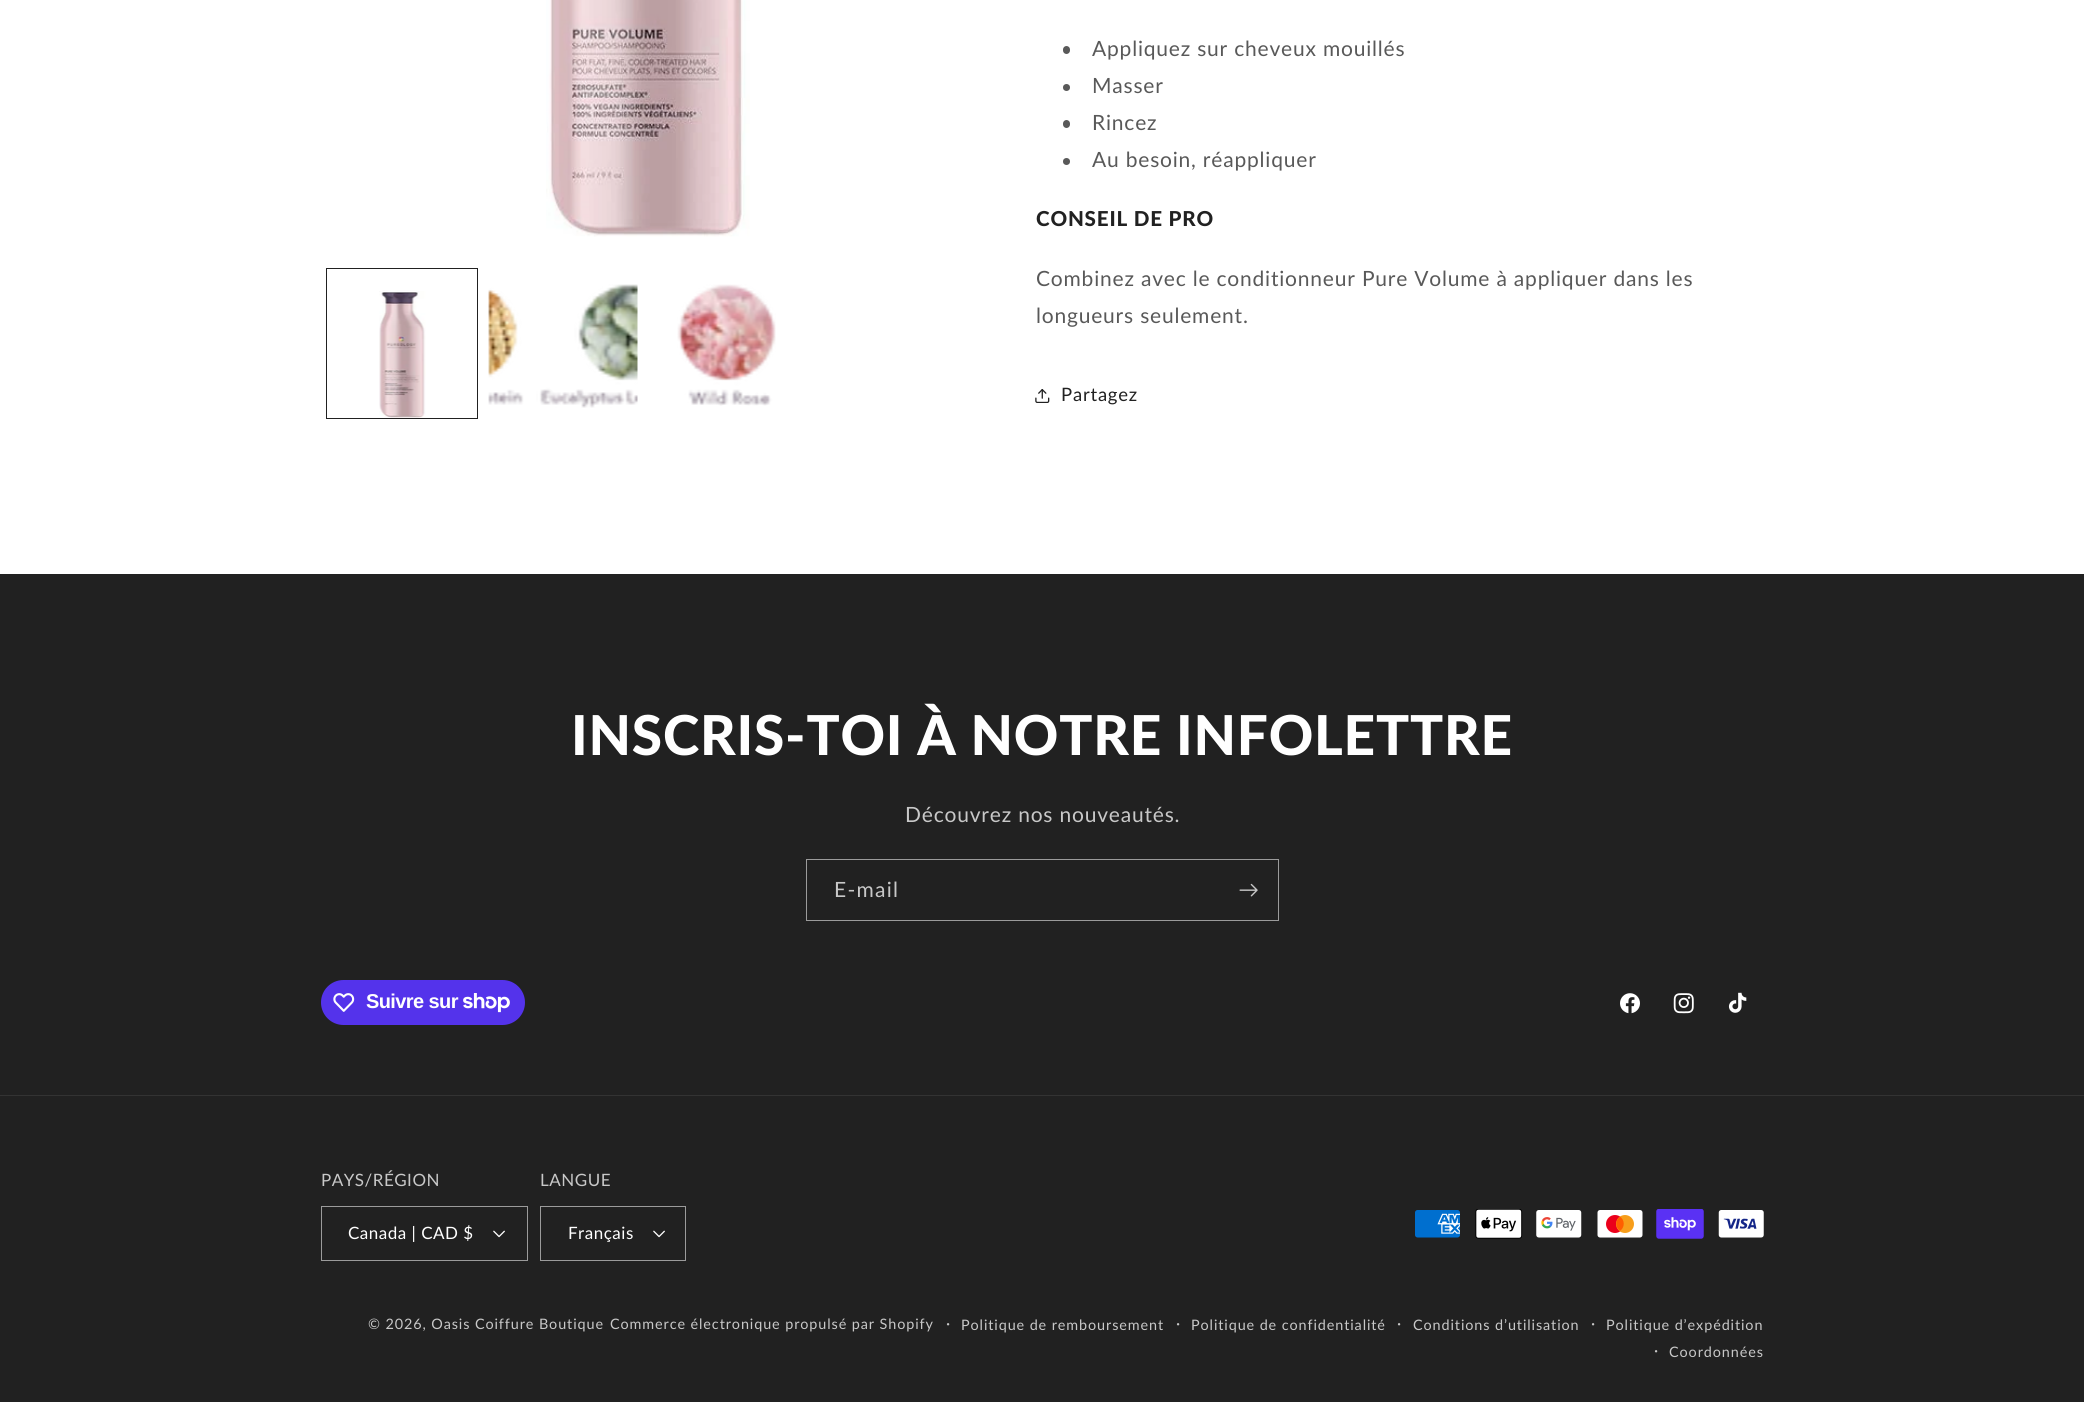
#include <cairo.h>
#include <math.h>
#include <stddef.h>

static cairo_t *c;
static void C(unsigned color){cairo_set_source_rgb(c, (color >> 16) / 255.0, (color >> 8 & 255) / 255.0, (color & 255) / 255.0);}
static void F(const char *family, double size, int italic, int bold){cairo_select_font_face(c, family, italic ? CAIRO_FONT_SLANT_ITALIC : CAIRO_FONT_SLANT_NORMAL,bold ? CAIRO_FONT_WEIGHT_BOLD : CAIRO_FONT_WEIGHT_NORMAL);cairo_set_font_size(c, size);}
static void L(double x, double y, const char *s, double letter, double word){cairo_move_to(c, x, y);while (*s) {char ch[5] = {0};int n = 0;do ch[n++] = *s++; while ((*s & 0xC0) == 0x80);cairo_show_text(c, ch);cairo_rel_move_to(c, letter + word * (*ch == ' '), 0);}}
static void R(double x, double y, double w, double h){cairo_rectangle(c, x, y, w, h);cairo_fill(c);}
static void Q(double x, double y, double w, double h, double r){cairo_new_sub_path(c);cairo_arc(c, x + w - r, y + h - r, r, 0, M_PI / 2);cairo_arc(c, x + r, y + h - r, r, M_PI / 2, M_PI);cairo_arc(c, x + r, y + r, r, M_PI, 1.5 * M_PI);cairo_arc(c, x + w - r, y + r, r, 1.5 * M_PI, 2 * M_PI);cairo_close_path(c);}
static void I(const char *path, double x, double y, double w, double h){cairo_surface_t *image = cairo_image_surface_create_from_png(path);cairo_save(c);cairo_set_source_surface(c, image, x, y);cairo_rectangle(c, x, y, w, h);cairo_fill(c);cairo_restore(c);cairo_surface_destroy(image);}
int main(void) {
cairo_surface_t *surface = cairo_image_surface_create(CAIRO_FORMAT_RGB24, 2084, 1402);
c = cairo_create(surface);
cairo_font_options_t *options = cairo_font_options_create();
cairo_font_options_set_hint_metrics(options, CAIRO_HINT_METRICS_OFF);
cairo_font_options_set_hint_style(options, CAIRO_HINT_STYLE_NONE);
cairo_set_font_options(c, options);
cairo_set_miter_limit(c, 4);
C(0xffffff);
cairo_paint(c);
I("1.png",546,0,204,237);
cairo_rectangle(c,326.5,268.5,151,150);
C(0x212121);
cairo_set_line_width(c,1);
cairo_stroke(c);
I("2.png",379,290,47,128);
I("3.png",488,284,150,124);
I("4.png",677,284,99,122);
C(0x595959);
Q(1063,46,7,8,3.5);
cairo_fill(c);
F("Lato",21,0,0);
L(1092,56,"Appliquez sur cheveux mouillés",.8,0);
cairo_new_path(c);
cairo_arc(c,1066.5,87.5,3.5,0,2 * M_PI);
cairo_fill(c);
L(1092,93,"Masser",.8,0);
Q(1063,120,7,8,3.5);
cairo_fill(c);
L(1092,130,"Rincez",.8,0);
cairo_new_path(c);
cairo_arc(c,1066.5,161.5,3.5,0,2 * M_PI);
cairo_fill(c);
L(1092,167,"Au besoin, réappliquer",.8,0);
F("Lato Black",20.6,0,0);
C(0x212121);
L(1036,226,"CONSEIL DE PRO",.8,0);
F("Lato",21,0,0);
C(0x595959);
L(1036,286,"Combinez avec le conditionneur Pure Volume à appliquer dans les",.8,0);
L(1036,323,"longueurs seulement.",.8,0);
I("5.png",1035,389,15,14);
F("Lato",18.5,0,0);
C(0x212121);
L(1061,401,"Partagez",.8,0);
R(0,574,2084,828);
F("Lato Black",55,0,0);
C(0xffffff);
L(571,755,"INSCRIS-TOI À NOTRE INFOLETTRE",.8,0);
F("Lato",21,0,0);
C(0xc8c8c8);
L(905,822,"Découvrez nos nouveautés.",.8,0);
cairo_rectangle(c,806.5,859.5,472,61);
C(0x9b9b9b);
cairo_stroke(c);
C(0xc8c8c8);
L(834,897,"E-mail",1.25,0);
I("6.png",1239,883,19,14);
C(0x5433eb);
Q(321,980,204,45,22.5);
cairo_fill(c);
I("7.png",333,993,22,19);
F("Liberation Sans",20,0,1);
C(0xffffff);
L(366,1008,"Suivre sur",-.6,0);
I("8.png",463,993,47,20);
I("9.png",1620,993,20,21);
I("10.png",1673,993,21,21);
I("11.png",1728,992,19,21);
C(0x333333);
R(0,1095,2084,1);
F("Lato",17,0,0);
C(0xc8c8c8);
L(321,1186,"PAYS/RÉGION",.5,0);
I("12.png",493,1230,12,8);
cairo_rectangle(c,321.5,1206.5,206,54);
C(0x9b9b9b);
cairo_stroke(c);
C(0xffffff);
L(348,1239,"Canada | CAD $",.5,0);
C(0xc8c8c8);
L(540,1186,"LANGUE",.5,0);
I("12.png",653,1230,12,8);
cairo_rectangle(c,540.5,1206.5,145,54);
C(0x9b9b9b);
cairo_stroke(c);
C(0xffffff);
L(568,1239,"Français",.5,0);
I("13.png",1415,1210,45,28);
I("14.png",1475,1209,48,30);
I("15.png",1536,1210,46,28);
I("16.png",1597,1210,46,28);
I("17.png",1656,1209,48,30);
I("18.png",1718,1210,46,28);
F("Lato",14.4,0,0);
C(0xc8c8c8);
L(368,1329,"© 2026, Oasis Coiffure Boutique",.9,0);
L(610,1329,"Commerce électronique propulsé par Shopify",.9,0);
F("Lato",16,0,0);
L(946,1329,"·",.9,0);
F("Lato",14.4,0,0);
L(961,1330,"Politique de remboursement",.9,0);
F("Lato",16,0,0);
L(1176,1329,"·",.9,0);
F("Lato",14.4,0,0);
L(1191,1330,"Politique de confidentialité",.9,0);
F("Lato",16,0,0);
L(1397,1329,"·",.9,0);
F("Lato",14.4,0,0);
L(1413,1330,"Conditions d’utilisation",.9,0);
F("Lato",16,0,0);
L(1591,1329,"·",.9,0);
F("Lato",14.4,0,0);
L(1606,1330,"Politique d’expédition",.9,0);
F("Lato",16,0,0);
L(1654,1356,"·",.9,0);
F("Lato",14.4,0,0);
L(1669,1357,"Coordonnées",.9,0);
cairo_surface_write_to_png(surface, "o.png");
cairo_font_options_destroy(options);
cairo_destroy(c);
cairo_surface_destroy(surface);
return 0;
}
